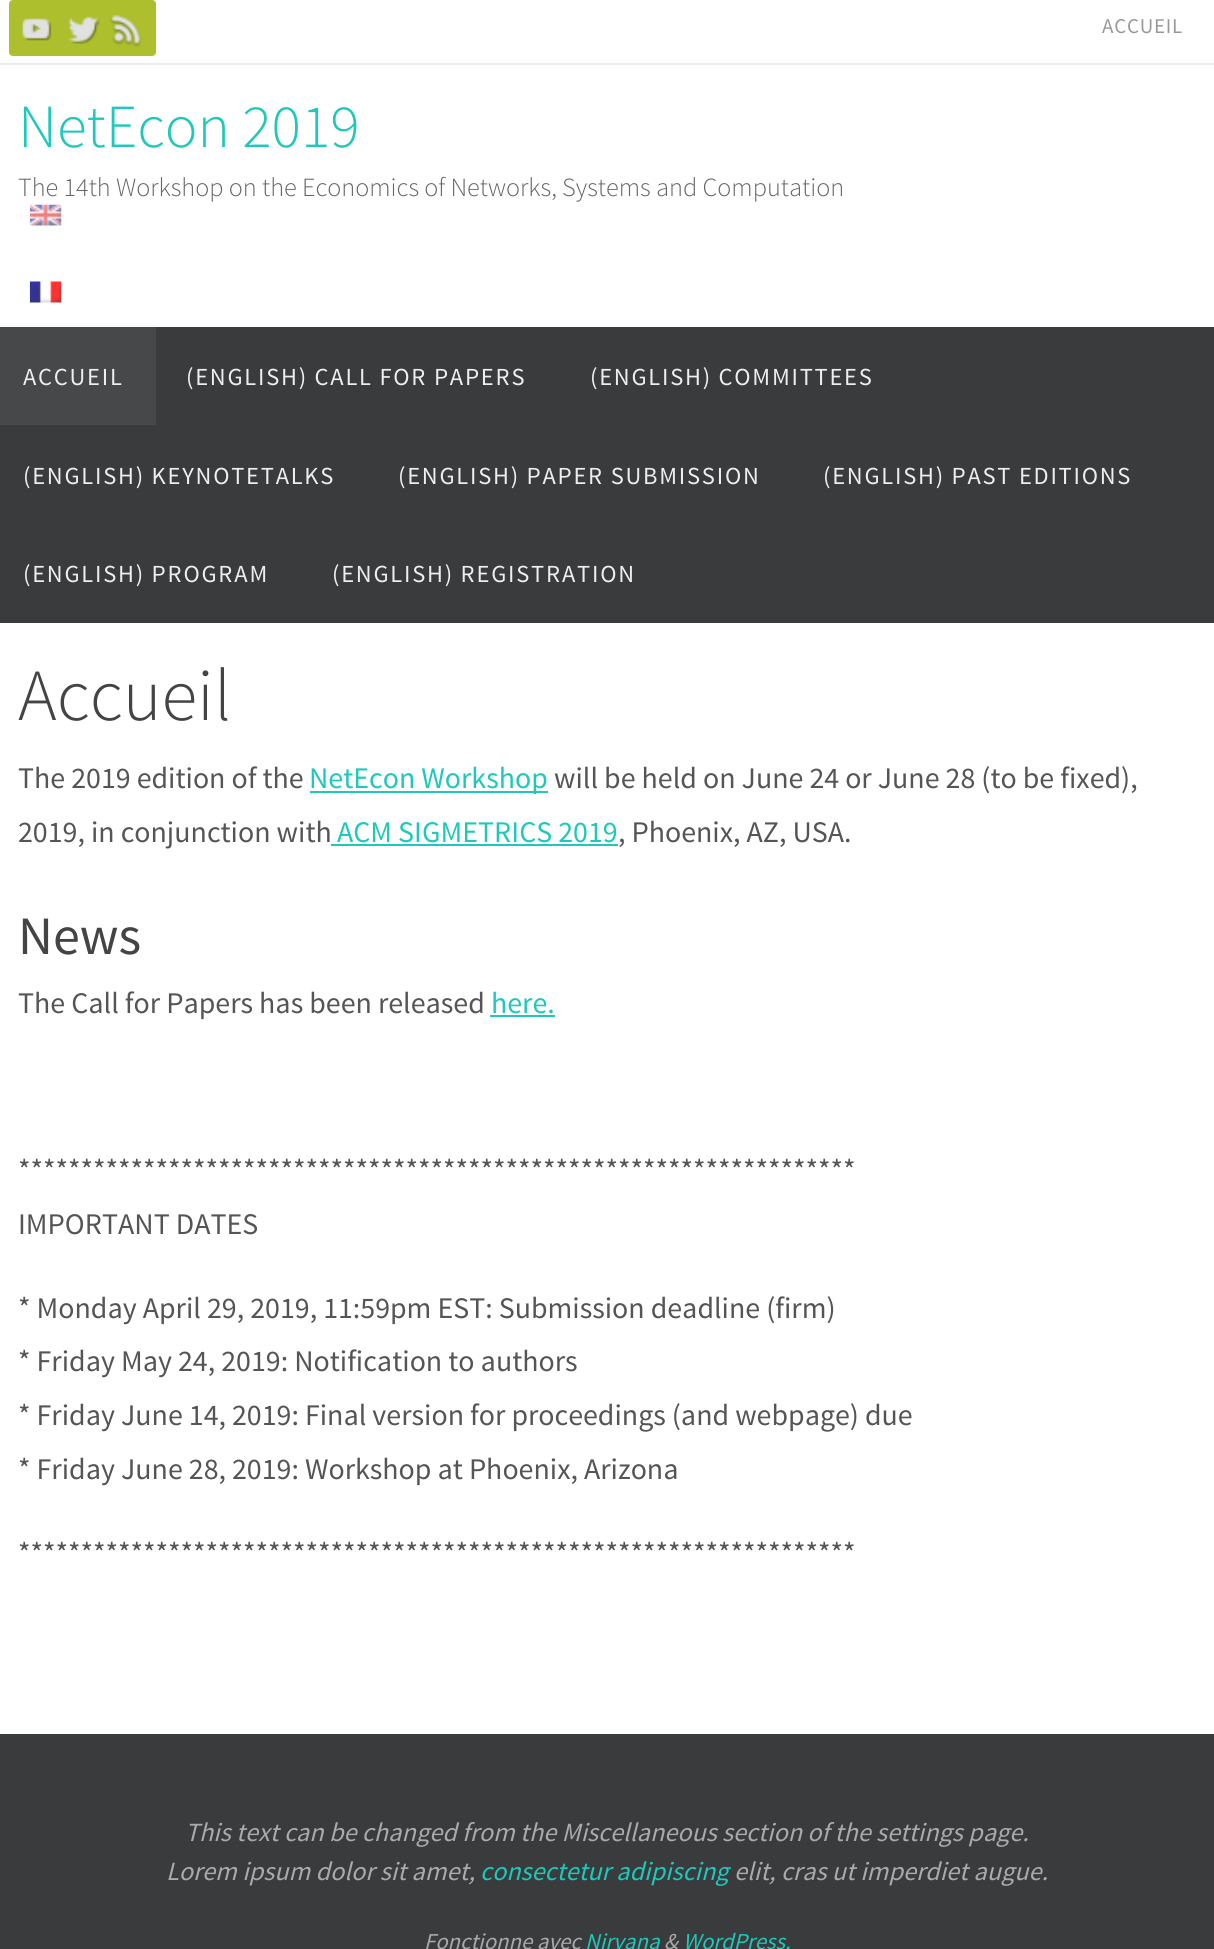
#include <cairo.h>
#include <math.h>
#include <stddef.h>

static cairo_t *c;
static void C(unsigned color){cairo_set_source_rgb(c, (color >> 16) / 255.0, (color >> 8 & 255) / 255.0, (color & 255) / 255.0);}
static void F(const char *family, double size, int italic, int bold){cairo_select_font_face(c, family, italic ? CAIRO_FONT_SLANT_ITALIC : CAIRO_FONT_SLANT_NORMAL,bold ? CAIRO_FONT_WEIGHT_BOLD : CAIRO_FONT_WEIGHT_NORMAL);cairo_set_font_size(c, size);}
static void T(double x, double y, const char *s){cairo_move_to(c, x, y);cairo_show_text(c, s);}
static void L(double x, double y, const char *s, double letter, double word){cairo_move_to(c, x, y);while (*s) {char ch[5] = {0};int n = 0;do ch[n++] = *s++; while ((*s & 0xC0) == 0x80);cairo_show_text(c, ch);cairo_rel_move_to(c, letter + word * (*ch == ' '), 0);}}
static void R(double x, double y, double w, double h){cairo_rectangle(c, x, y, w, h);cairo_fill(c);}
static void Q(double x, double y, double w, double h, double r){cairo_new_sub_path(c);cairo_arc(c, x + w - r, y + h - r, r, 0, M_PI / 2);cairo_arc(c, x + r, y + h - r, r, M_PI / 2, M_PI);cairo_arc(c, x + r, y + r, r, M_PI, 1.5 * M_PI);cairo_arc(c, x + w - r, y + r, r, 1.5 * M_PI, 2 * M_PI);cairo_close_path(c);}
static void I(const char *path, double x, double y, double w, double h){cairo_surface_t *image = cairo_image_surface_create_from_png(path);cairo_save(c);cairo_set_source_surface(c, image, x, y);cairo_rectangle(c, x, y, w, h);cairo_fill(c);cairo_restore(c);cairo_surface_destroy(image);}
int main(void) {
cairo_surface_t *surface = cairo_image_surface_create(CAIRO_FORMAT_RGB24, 1214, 1949);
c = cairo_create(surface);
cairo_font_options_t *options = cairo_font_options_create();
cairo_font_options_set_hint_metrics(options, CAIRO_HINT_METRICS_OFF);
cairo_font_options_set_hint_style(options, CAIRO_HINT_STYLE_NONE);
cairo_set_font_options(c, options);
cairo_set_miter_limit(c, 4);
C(0xffffff);
cairo_paint(c);
C(0xebebeb);
R(0,63,1214,2);
C(0xadbf2d);
Q(9,0,56,56,4);
cairo_fill(c);
I("1.png",22,18,30,23);
Q(54,0,56,56,4);
cairo_fill(c);
I("2.png",68,16,32,28);
Q(100,0,56,56,4);
cairo_fill(c);
I("3.png",110,15,32,32);
F("Source Sans Pro",21,0,0);
C(0x999999);
L(1102,33,"ACCUEIL",.75,0);
F("Source Sans Pro Light",61.25,0,0);
C(0x1ec8bb);
T(18,147,"NetEcon 2019");
F("Source Sans Pro Light",26.25,0,0);
C(0x666666);
T(18,196,"The 14th Workshop on the Economics of Networks, Systems and Computation");
I("4.png",29,204,33,22);
I("5.png",29,281,33,22);
C(0x3a3b3d);
R(0,327,1214,296);
C(0x47484a);
R(0,327,156,98);
F("Source Sans Pro",24.5,0,0);
C(0xeeeeee);
L(23,385,"ACCUEIL",1.75,0);
L(186,385,"(ENGLISH) CALL FOR PAPERS",1.75,0);
L(590,385,"(ENGLISH) COMMITTEES",1.75,0);
L(23,484,"(ENGLISH) KEYNOTETALKS",1.75,0);
L(398,484,"(ENGLISH) PAPER SUBMISSION",1.75,0);
L(823,484,"(ENGLISH) PAST EDITIONS",1.75,0);
L(23,582,"(ENGLISH) PROGRAM",1.75,0);
L(332,582,"(ENGLISH) REGISTRATION",1.75,0);
F("Source Sans Pro Light",73.5,0,0);
C(0x444444);
T(18,720,"Accueil");
F("Source Sans Pro",29.9,0,0);
C(0x555555);
T(18,788,"The 2019 edition of the");
C(0x1ec8bb);
R(310,791,238,2);
T(309,788,"NetEcon Workshop");
C(0x555555);
T(554,788,"will be held on June 24 or June 28 (to be fixed),");
T(18,842,"2019, in conjunction with");
C(0x1ec8bb);
T(337,842,"ACM SIGMETRICS 2019");
R(331,844,287,2);
C(0x555555);
T(618,842,", Phoenix, AZ, USA.");
F("Source Sans Pro",54,0,0);
C(0x444444);
T(18,954,"News");
F("Source Sans Pro",29.9,0,0);
C(0x555555);
T(18,1013,"The Call for Papers has been released");
C(0x1ec8bb);
T(491,1013,"here.");
R(490,1015,65,2);
C(0x555555);
T(18,1180,"*******************************************************************");
T(18,1234,"IMPORTANT DATES");
T(18,1318,"* Monday April 29, 2019, 11:59pm EST: Submission deadline (firm)");
T(18,1371,"* Friday May 24, 2019: Notification to authors");
T(18,1425,"* Friday June 14, 2019: Final version for proceedings (and webpage) due");
T(18,1479,"* Friday June 28, 2019: Workshop at Phoenix, Arizona");
T(18,1563,"*******************************************************************");
C(0x3a3b3d);
R(0,1734,1214,215);
F("Source Sans Pro",26.25,1,0);
C(0xaaaaaa);
T(185,1841,"This text can be changed from the Miscellaneous section of the settings page.");
T(166,1880,"Lorem ipsum dolor sit amet,");
C(0x1ec8bb);
T(480,1880,"consectetur adipiscing");
C(0xaaaaaa);
T(734,1880,"elit, cras ut imperdiet augue.");
F("Source Sans Pro",22.75,1,0);
T(424,1949,"Fonctionne avec");
C(0x1ec8bb);
T(585,1949,"Nirvana");
C(0xaaaaaa);
T(664,1949,"&");
C(0x1ec8bb);
T(683,1949,"WordPress.");
cairo_surface_write_to_png(surface, "o.png");
cairo_font_options_destroy(options);
cairo_destroy(c);
cairo_surface_destroy(surface);
return 0;
}
